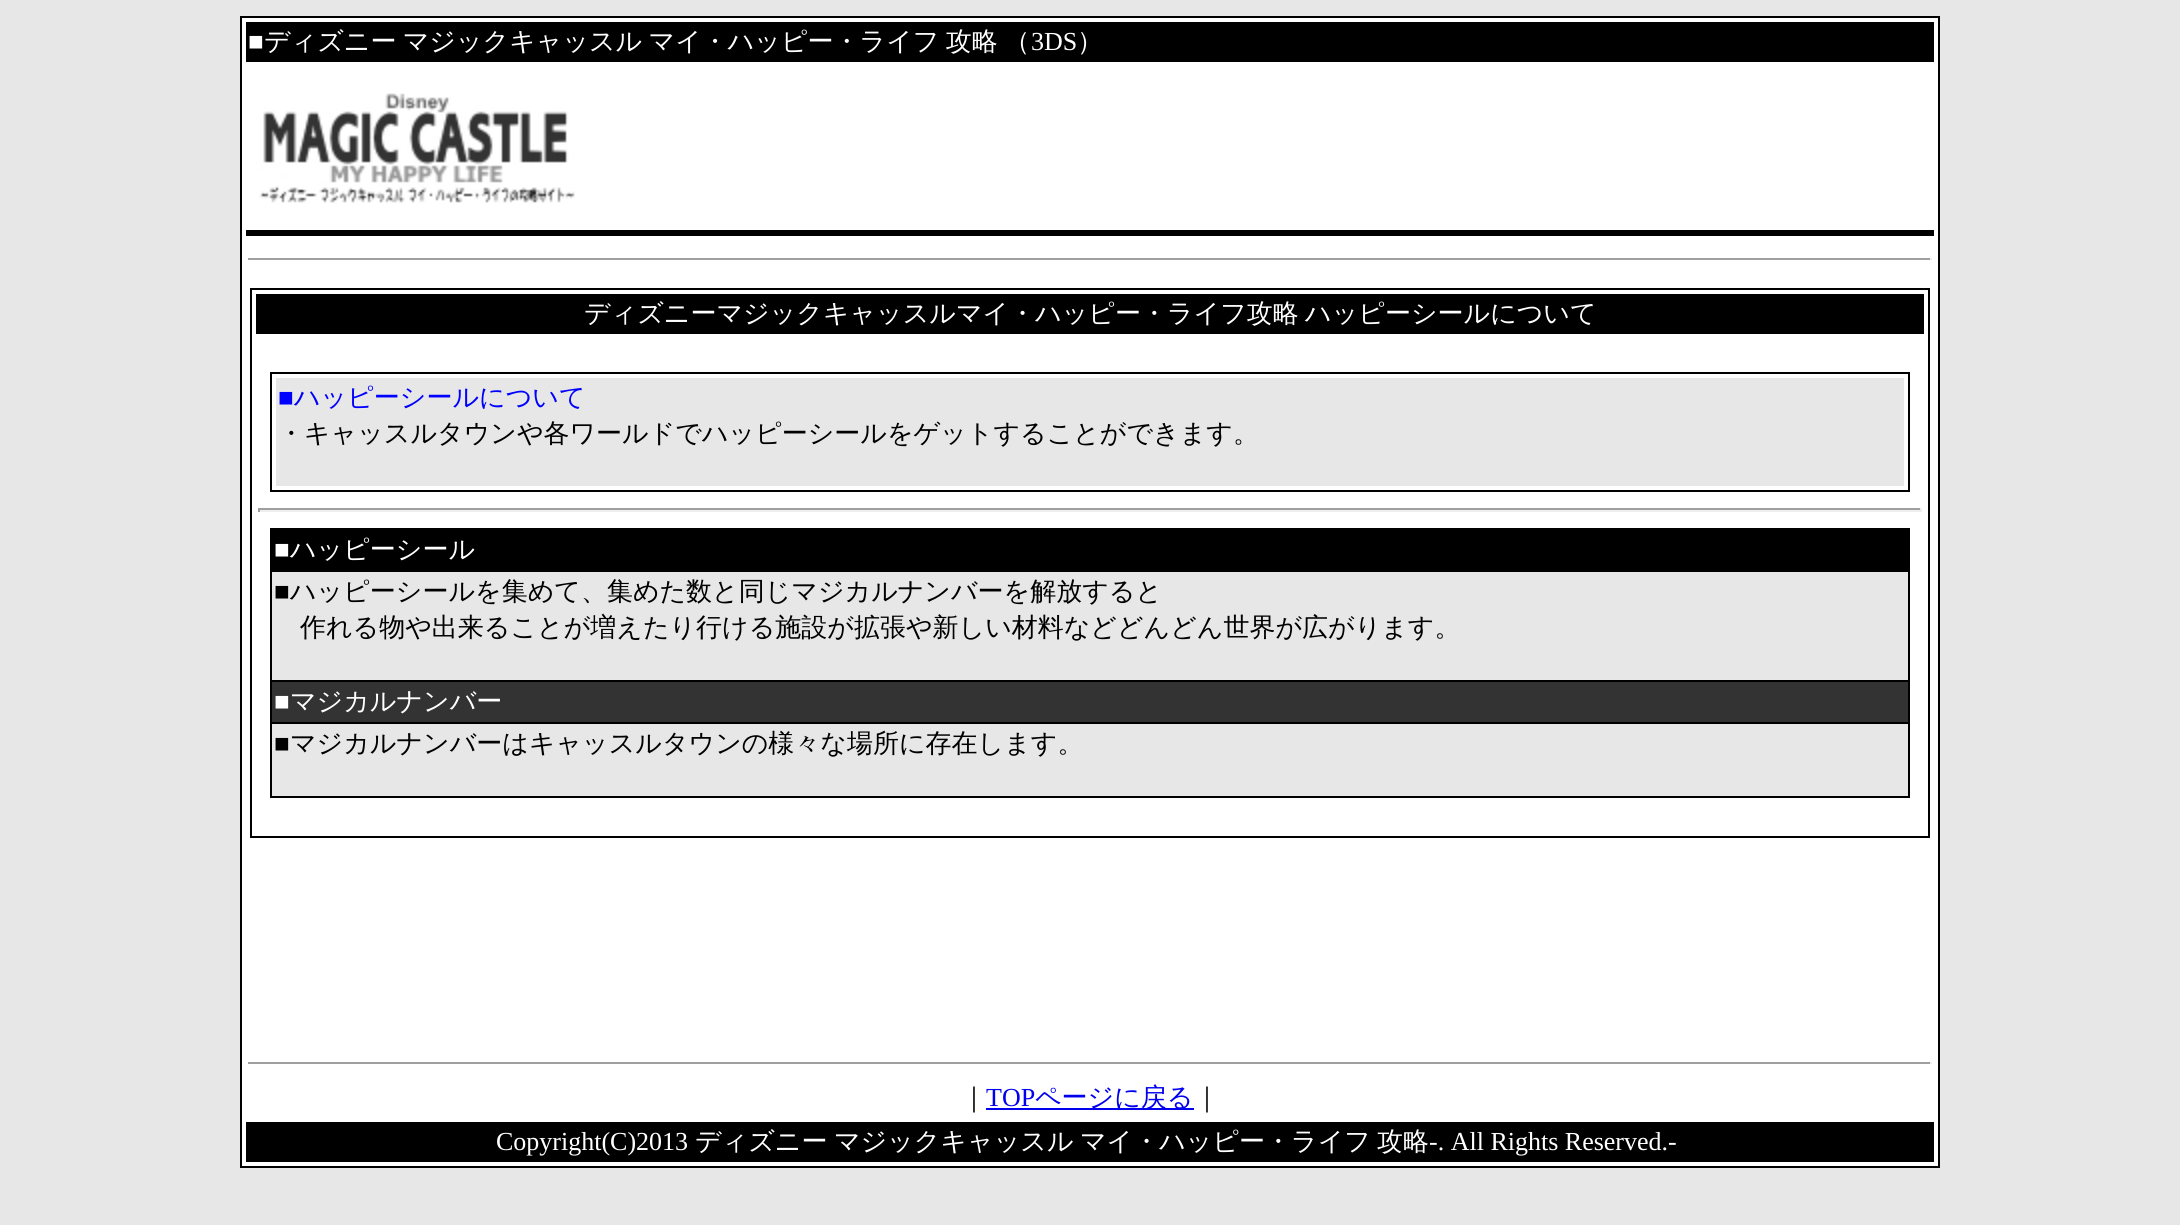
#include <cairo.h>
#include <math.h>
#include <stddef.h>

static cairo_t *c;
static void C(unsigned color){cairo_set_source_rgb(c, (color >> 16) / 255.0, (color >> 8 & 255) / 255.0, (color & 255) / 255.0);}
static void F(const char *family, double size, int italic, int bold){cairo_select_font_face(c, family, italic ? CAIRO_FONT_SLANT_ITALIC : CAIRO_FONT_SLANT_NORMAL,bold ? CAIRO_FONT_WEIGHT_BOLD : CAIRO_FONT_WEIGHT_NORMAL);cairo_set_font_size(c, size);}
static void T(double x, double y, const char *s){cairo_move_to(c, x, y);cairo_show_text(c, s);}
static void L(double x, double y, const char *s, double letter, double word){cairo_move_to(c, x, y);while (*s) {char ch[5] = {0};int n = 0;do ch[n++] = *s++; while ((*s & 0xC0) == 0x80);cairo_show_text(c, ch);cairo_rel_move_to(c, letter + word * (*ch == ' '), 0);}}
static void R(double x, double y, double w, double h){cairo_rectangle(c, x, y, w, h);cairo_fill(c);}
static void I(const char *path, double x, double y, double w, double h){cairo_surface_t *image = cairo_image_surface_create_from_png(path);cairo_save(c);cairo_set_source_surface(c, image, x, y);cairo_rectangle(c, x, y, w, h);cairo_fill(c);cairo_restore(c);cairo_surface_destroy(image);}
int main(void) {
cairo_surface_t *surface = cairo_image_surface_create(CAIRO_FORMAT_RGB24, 2180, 1225);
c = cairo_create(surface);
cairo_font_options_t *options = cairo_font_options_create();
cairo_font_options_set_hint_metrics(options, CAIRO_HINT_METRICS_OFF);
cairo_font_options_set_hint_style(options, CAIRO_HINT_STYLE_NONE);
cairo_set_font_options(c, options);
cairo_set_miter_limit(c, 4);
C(0xe7e7e7);
cairo_paint(c);
C(0xffffff);
R(242,18,1696,1148);
C(0x000000);
R(240,16,1700,2);
R(1938,16,2,1152);
R(240,16,2,828);
R(246,22,1688,40);
F("Liberation Serif",26,0,0);
C(0xffffff);
T(248,50,"■");
F("WenQuanYi Zen Hei Medium",26,0,0);
L(264,50,"ディズニー マジックキャッスル マイ・ハッピー・ライフ 攻略 （",0,-1.5);
F("Liberation Serif",26,0,0);
T(1031,50,"3DS");
F("WenQuanYi Zen Hei Medium",26,0,0);
T(1077,50,"）");
I("1.png",259,93,316,110);
C(0x000000);
R(246,230,1688,6);
C(0x9f9f9f);
R(248,258,1684,2);
C(0xeeeeee);
R(1930,258,2,2);
cairo_rectangle(c,251,289,1678,548);
C(0x000000);
cairo_stroke(c);
R(256,294,1668,40);
C(0xffffff);
L(584,322,"ディズニーマジックキャッスルマイ・ハッピー・ライフ攻略 ハッピーシールについて",0,-1.5);
cairo_rectangle(c,271,373,1638,118);
C(0x000000);
cairo_stroke(c);
C(0xe7e7e7);
R(276,378,1628,108);
F("Liberation Serif",26,0,0);
C(0x0000ff);
T(278,406,"■");
F("WenQuanYi Zen Hei Medium",26,0,0);
T(294,406,"ハッピーシールについて");
C(0x000000);
T(278,442,"・キャッスルタウンや各ワールドでハッピーシールをゲットすることができます。");
C(0x9f9f9f);
R(258,508,1664,2);
C(0xeeeeee);
R(1920,508,2,4);
R(258,510,1664,2);
C(0x9f9f9f);
R(258,508,2,4);
C(0x000000);
R(270,528,1640,270);
F("Liberation Serif",26,0,0);
C(0xffffff);
T(274,558,"■");
F("WenQuanYi Zen Hei Medium",26,0,0);
T(290,558,"ハッピーシール");
C(0xe7e7e7);
R(272,572,1636,108);
F("Liberation Serif",26,0,0);
C(0x000000);
T(274,600,"■");
F("WenQuanYi Zen Hei Medium",26,0,0);
T(290,600,"ハッピーシールを集めて、集めた数と同じマジカルナンバーを解放すると");
T(300,636,"作れる物や出来ることが増えたり行ける施設が拡張や新しい材料などどんどん世界が広がります。");
C(0x333333);
R(272,682,1636,40);
F("Liberation Serif",26,0,0);
C(0xffffff);
T(274,710,"■");
F("WenQuanYi Zen Hei Medium",26,0,0);
T(290,710,"マジカルナンバー");
C(0xe7e7e7);
R(272,724,1636,72);
F("Liberation Serif",26,0,0);
C(0x000000);
T(274,752,"■");
F("WenQuanYi Zen Hei Medium",26,0,0);
T(290,752,"マジカルナンバーはキャッスルタウンの様々な場所に存在します。");
R(240,1166,1700,2);
R(240,844,2,324);
C(0x9f9f9f);
R(248,1062,1684,2);
C(0xeeeeee);
R(1930,1062,2,2);
C(0x000000);
T(961,1106,"｜");
F("Liberation Serif",26,0,0);
C(0x0000ee);
T(986,1106,"TOP");
R(986,1108,208,2);
F("WenQuanYi Zen Hei Medium",26,0,0);
T(1035,1106,"ページに戻る");
C(0x000000);
T(1194,1106,"｜");
R(246,1122,1688,40);
F("Liberation Serif",26,0,0);
C(0xffffff);
T(496,1150,"Copyright(C)2013");
F("WenQuanYi Zen Hei Medium",26,0,0);
T(695,1150,"ディズニー");
T(834,1150,"マジックキャッスル");
T(1080,1150,"マイ・ハッピー・ライフ");
T(1377,1150,"攻略");
F("Liberation Serif",26,0,0);
T(1429,1150,"-. All Rights Reserved.-");
cairo_surface_write_to_png(surface, "o.png");
cairo_font_options_destroy(options);
cairo_destroy(c);
cairo_surface_destroy(surface);
return 0;
}
